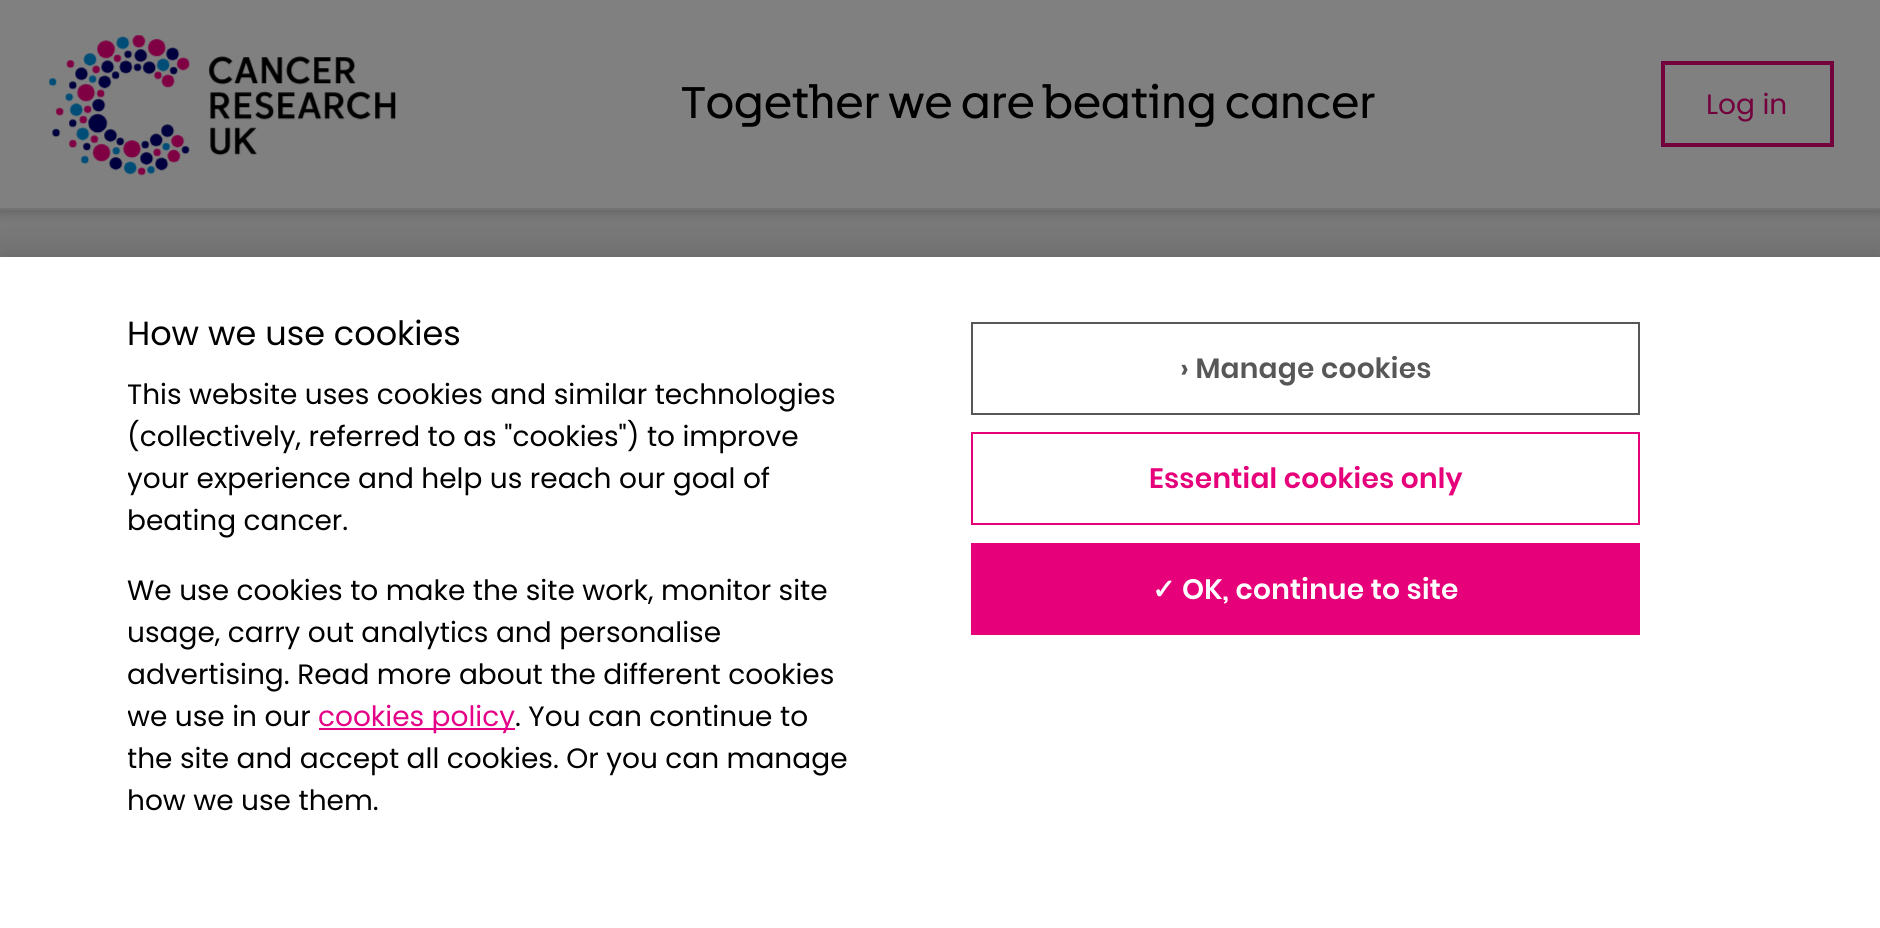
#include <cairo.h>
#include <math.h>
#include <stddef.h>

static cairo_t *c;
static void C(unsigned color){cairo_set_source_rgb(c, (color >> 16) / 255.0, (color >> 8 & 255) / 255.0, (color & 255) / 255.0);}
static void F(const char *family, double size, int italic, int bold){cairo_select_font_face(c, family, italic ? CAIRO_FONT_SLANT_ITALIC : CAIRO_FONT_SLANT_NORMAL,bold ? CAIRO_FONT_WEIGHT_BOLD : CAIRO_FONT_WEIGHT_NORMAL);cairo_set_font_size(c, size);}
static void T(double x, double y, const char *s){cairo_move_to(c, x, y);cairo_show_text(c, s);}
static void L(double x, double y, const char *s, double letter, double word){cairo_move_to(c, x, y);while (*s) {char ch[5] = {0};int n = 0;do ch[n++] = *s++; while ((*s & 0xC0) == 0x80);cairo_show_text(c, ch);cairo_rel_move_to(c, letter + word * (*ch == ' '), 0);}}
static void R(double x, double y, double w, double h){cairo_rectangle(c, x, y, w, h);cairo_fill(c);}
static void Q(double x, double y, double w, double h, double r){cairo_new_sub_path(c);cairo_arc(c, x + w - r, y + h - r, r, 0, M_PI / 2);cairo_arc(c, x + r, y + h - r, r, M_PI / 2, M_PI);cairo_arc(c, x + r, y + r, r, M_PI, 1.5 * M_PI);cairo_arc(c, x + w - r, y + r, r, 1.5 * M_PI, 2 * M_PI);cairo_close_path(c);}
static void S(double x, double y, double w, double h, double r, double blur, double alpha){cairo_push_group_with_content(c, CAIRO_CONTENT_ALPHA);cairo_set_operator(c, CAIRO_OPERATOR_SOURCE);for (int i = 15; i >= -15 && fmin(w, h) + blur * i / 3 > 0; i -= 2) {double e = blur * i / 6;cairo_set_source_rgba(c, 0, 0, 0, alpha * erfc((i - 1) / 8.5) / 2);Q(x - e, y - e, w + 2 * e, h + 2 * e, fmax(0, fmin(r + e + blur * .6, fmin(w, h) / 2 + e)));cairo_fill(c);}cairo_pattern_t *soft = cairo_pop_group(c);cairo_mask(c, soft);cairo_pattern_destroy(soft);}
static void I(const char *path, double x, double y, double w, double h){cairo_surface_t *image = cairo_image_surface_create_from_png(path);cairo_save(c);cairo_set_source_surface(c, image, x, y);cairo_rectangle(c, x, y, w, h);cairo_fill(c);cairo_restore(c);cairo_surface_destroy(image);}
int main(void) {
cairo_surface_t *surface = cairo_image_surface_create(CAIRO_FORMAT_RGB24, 1880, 928);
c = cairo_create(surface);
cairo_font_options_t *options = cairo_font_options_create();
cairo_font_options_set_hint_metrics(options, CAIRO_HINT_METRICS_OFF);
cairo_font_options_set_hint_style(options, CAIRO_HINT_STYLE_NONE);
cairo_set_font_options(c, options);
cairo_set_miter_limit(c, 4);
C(0x797979);
cairo_paint(c);
C(0x808080);
R(0,0,1880,208);
cairo_save(c);
cairo_rectangle(c,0,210,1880,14);
cairo_clip(c);
C(0x636363);
S(-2,-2,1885,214,0,6,1);
cairo_restore(c);
C(0x737373);
R(0,208,1880,2);
I("1.png",49,35,347,141);
F("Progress",43.75,0,0);
C(0x000000);
T(681,118,"Together we are beating cancer");
cairo_rectangle(c,1663,63,169,82);
C(0x73003d);
cairo_set_line_width(c,4);
cairo_stroke(c);
F("Poppins",28,0,0);
T(1706,114,"Log in");
C(0x000000);
S(0,257,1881,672,0,16,.2);
C(0xffffff);
R(0,257,1880,671);
F("Poppins",33.5,0,0);
C(0x000000);
T(127,345,"How we use cookies");
cairo_save(c);
cairo_rectangle(c,128,313,731,560);
cairo_clip(c);
F("Poppins",28,0,0);
T(127,404,"This website uses cookies and similar technologies");
cairo_restore(c);
F("Poppins",28,0,0);
T(127,446,"(collectively, referred to as \"cookies\") to improve");
cairo_save(c);
cairo_rectangle(c,128,313,731,560);
cairo_clip(c);
T(127,488,"your experience and help us reach our goal of");
cairo_restore(c);
T(127,530,"beating cancer.");
T(127,600,"We use cookies to make the site work, monitor site");
T(127,642,"usage, carry out analytics and personalise");
T(127,684,"advertising. Read more about the different cookies");
cairo_save(c);
cairo_rectangle(c,128,313,731,560);
cairo_clip(c);
T(127,726,"we use in our");
cairo_restore(c);
C(0xe40087);
R(319,728,196,2);
T(318,726,"cookies policy");
C(0x000000);
T(515,726,". You can continue to");
cairo_save(c);
cairo_rectangle(c,128,313,731,560);
cairo_clip(c);
T(127,768,"the site and accept all cookies. Or you can manage");
cairo_restore(c);
T(127,810,"how we use them.");
cairo_rectangle(c,972,323,667,91);
C(0x575757);
cairo_set_line_width(c,2);
cairo_stroke(c);
F("Poppins SemiBold",28,0,0);
L(1180,378,"› Manage cookies",.25,0);
cairo_rectangle(c,972,433,667,91);
C(0xe60079);
cairo_stroke(c);
L(1149,488,"Essential cookies only",.25,0);
R(971,543,669,92);
F("DejaVu Sans",28,0,1);
C(0xffffff);
L(1152,599,"✓",.25,0);
F("Poppins SemiBold",28,0,0);
L(1182,599,"OK, continue to site",.25,0);
cairo_surface_write_to_png(surface, "o.png");
cairo_font_options_destroy(options);
cairo_destroy(c);
cairo_surface_destroy(surface);
return 0;
}
